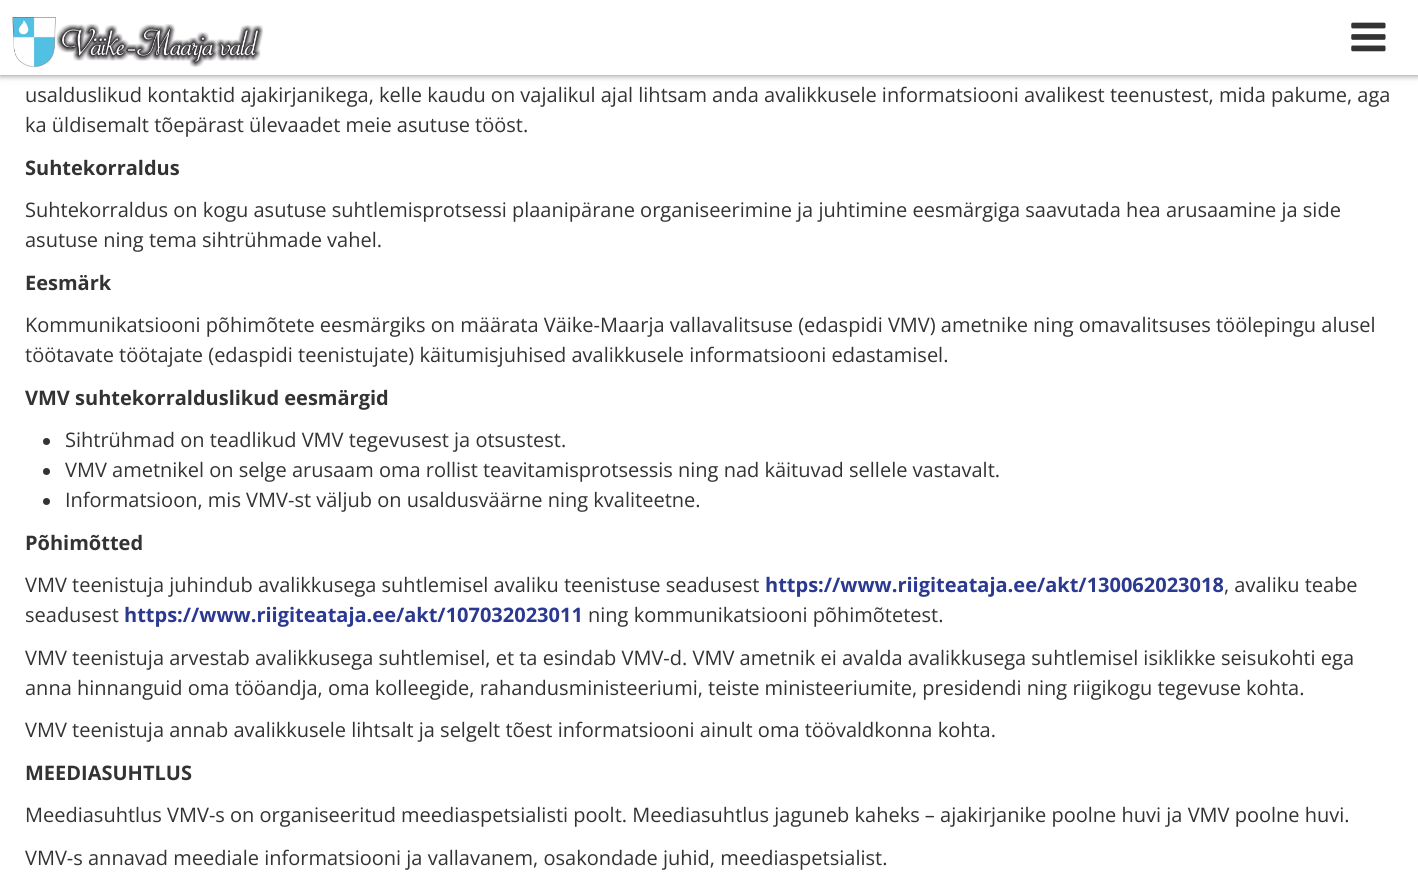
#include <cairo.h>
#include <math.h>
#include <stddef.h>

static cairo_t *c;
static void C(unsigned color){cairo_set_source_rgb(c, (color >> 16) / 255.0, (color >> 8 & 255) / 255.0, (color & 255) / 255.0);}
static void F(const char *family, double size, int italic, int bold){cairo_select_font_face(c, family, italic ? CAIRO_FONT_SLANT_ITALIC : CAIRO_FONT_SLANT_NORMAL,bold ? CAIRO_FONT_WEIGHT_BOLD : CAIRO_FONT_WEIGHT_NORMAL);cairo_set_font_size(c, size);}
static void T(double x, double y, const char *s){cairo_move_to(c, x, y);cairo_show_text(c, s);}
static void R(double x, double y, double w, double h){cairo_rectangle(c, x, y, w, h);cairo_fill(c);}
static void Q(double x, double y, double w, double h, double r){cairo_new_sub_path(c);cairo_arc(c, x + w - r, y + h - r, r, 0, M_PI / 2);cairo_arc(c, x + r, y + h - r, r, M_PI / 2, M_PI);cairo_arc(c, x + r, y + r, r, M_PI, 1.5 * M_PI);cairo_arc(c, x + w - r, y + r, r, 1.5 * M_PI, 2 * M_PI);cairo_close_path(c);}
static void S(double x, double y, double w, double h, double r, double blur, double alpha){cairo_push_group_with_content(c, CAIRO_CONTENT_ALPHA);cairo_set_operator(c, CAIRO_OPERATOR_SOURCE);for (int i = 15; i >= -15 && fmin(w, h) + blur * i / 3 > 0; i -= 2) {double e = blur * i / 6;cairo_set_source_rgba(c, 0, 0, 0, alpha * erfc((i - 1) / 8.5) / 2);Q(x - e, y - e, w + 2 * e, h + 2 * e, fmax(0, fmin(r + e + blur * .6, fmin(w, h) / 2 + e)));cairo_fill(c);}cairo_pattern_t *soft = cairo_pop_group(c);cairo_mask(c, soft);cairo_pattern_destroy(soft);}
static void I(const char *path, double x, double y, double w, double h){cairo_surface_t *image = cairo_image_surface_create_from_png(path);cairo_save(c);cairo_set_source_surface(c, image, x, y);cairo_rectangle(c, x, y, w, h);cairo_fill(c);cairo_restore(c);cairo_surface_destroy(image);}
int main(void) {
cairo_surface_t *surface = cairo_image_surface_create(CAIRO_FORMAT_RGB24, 1418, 872);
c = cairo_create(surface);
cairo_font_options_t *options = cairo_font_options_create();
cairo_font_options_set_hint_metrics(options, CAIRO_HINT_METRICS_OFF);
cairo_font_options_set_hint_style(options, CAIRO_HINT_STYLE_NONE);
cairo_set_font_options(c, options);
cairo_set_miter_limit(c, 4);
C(0xffffff);
cairo_paint(c);
C(0x000000);
S(0,1,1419,75,0,3,.4);
C(0xffffff);
R(0,0,1418,75);
I("1.png",12,17,252,51);
I("2.png",1351,22,35,30);
F("Open Sans",20,0,0);
C(0x333333);
T(25,102,"usalduslikud kontaktid ajakirjanikega, kelle kaudu on vajalikul ajal lihtsam anda avalikkusele informatsiooni avalikest teenustest, mida pakume, aga");
T(25,132,"ka üldisemalt tõepärast ülevaadet meie asutuse tööst.");
F("Open Sans",20,0,1);
T(25,175,"Suhtekorraldus");
F("Open Sans",20,0,0);
T(25,217,"Suhtekorraldus on kogu asutuse suhtlemisprotsessi plaanipärane organiseerimine ja juhtimine eesmärgiga saavutada hea arusaamine ja side");
T(25,247,"asutuse ning tema sihtrühmade vahel.");
F("Open Sans",20,0,1);
T(25,290,"Eesmärk");
F("Open Sans",20,0,0);
T(25,332,"Kommunikatsiooni põhimõtete eesmärgiks on määrata Väike-Maarja vallavalitsuse (edaspidi VMV) ametnike ning omavalitsuses töölepingu alusel");
T(25,362,"töötavate töötajate (edaspidi teenistujate) käitumisjuhised avalikkusele informatsiooni edastamisel.");
F("Open Sans",20,0,1);
T(25,405,"VMV suhtekorralduslikud eesmärgid");
cairo_new_path(c);
cairo_arc(c,46.5,441.5,3.5,0,2 * M_PI);
cairo_fill(c);
F("Open Sans",20,0,0);
T(65,447,"Sihtrühmad on teadlikud VMV tegevusest ja otsustest.");
cairo_new_path(c);
cairo_arc(c,46.5,471.5,3.5,0,2 * M_PI);
cairo_fill(c);
T(65,477,"VMV ametnikel on selge arusaam oma rollist teavitamisprotsessis ning nad käituvad sellele vastavalt.");
cairo_new_path(c);
cairo_arc(c,46.5,501.5,3.5,0,2 * M_PI);
cairo_fill(c);
T(65,507,"Informatsioon, mis VMV-st väljub on usaldusväärne ning kvaliteetne.");
F("Open Sans",20,0,1);
T(25,550,"Põhimõtted");
F("Open Sans",20,0,0);
T(25,592,"VMV teenistuja juhindub avalikkusega suhtlemisel avaliku teenistuse seadusest");
F("Open Sans",20,0,1);
C(0x2b3990);
T(765,592,"https://www.riigiteataja.ee/akt/130062023018");
F("Open Sans",20,0,0);
C(0x333333);
T(1224,592,", avaliku teabe");
T(25,622,"seadusest");
F("Open Sans",20,0,1);
C(0x2b3990);
T(124,622,"https://www.riigiteataja.ee/akt/107032023011");
F("Open Sans",20,0,0);
C(0x333333);
T(588,622,"ning kommunikatsiooni põhimõtetest.");
T(25,665,"VMV teenistuja arvestab avalikkusega suhtlemisel, et ta esindab VMV-d. VMV ametnik ei avalda avalikkusega suhtlemisel isiklikke seisukohti ega");
T(25,695,"anna hinnanguid oma tööandja, oma kolleegide, rahandusministeeriumi, teiste ministeeriumite, presidendi ning riigikogu tegevuse kohta.");
T(25,737,"VMV teenistuja annab avalikkusele lihtsalt ja selgelt tõest informatsiooni ainult oma töövaldkonna kohta.");
F("Open Sans",20,0,1);
T(25,780,"MEEDIASUHTLUS");
F("Open Sans",20,0,0);
T(25,822,"Meediasuhtlus VMV-s on organiseeritud meediaspetsialisti poolt. Meediasuhtlus jaguneb kaheks – ajakirjanike poolne huvi ja VMV poolne huvi.");
T(25,865,"VMV-s annavad meediale informatsiooni ja vallavanem, osakondade juhid, meediaspetsialist.");
cairo_surface_write_to_png(surface, "o.png");
cairo_font_options_destroy(options);
cairo_destroy(c);
cairo_surface_destroy(surface);
return 0;
}
